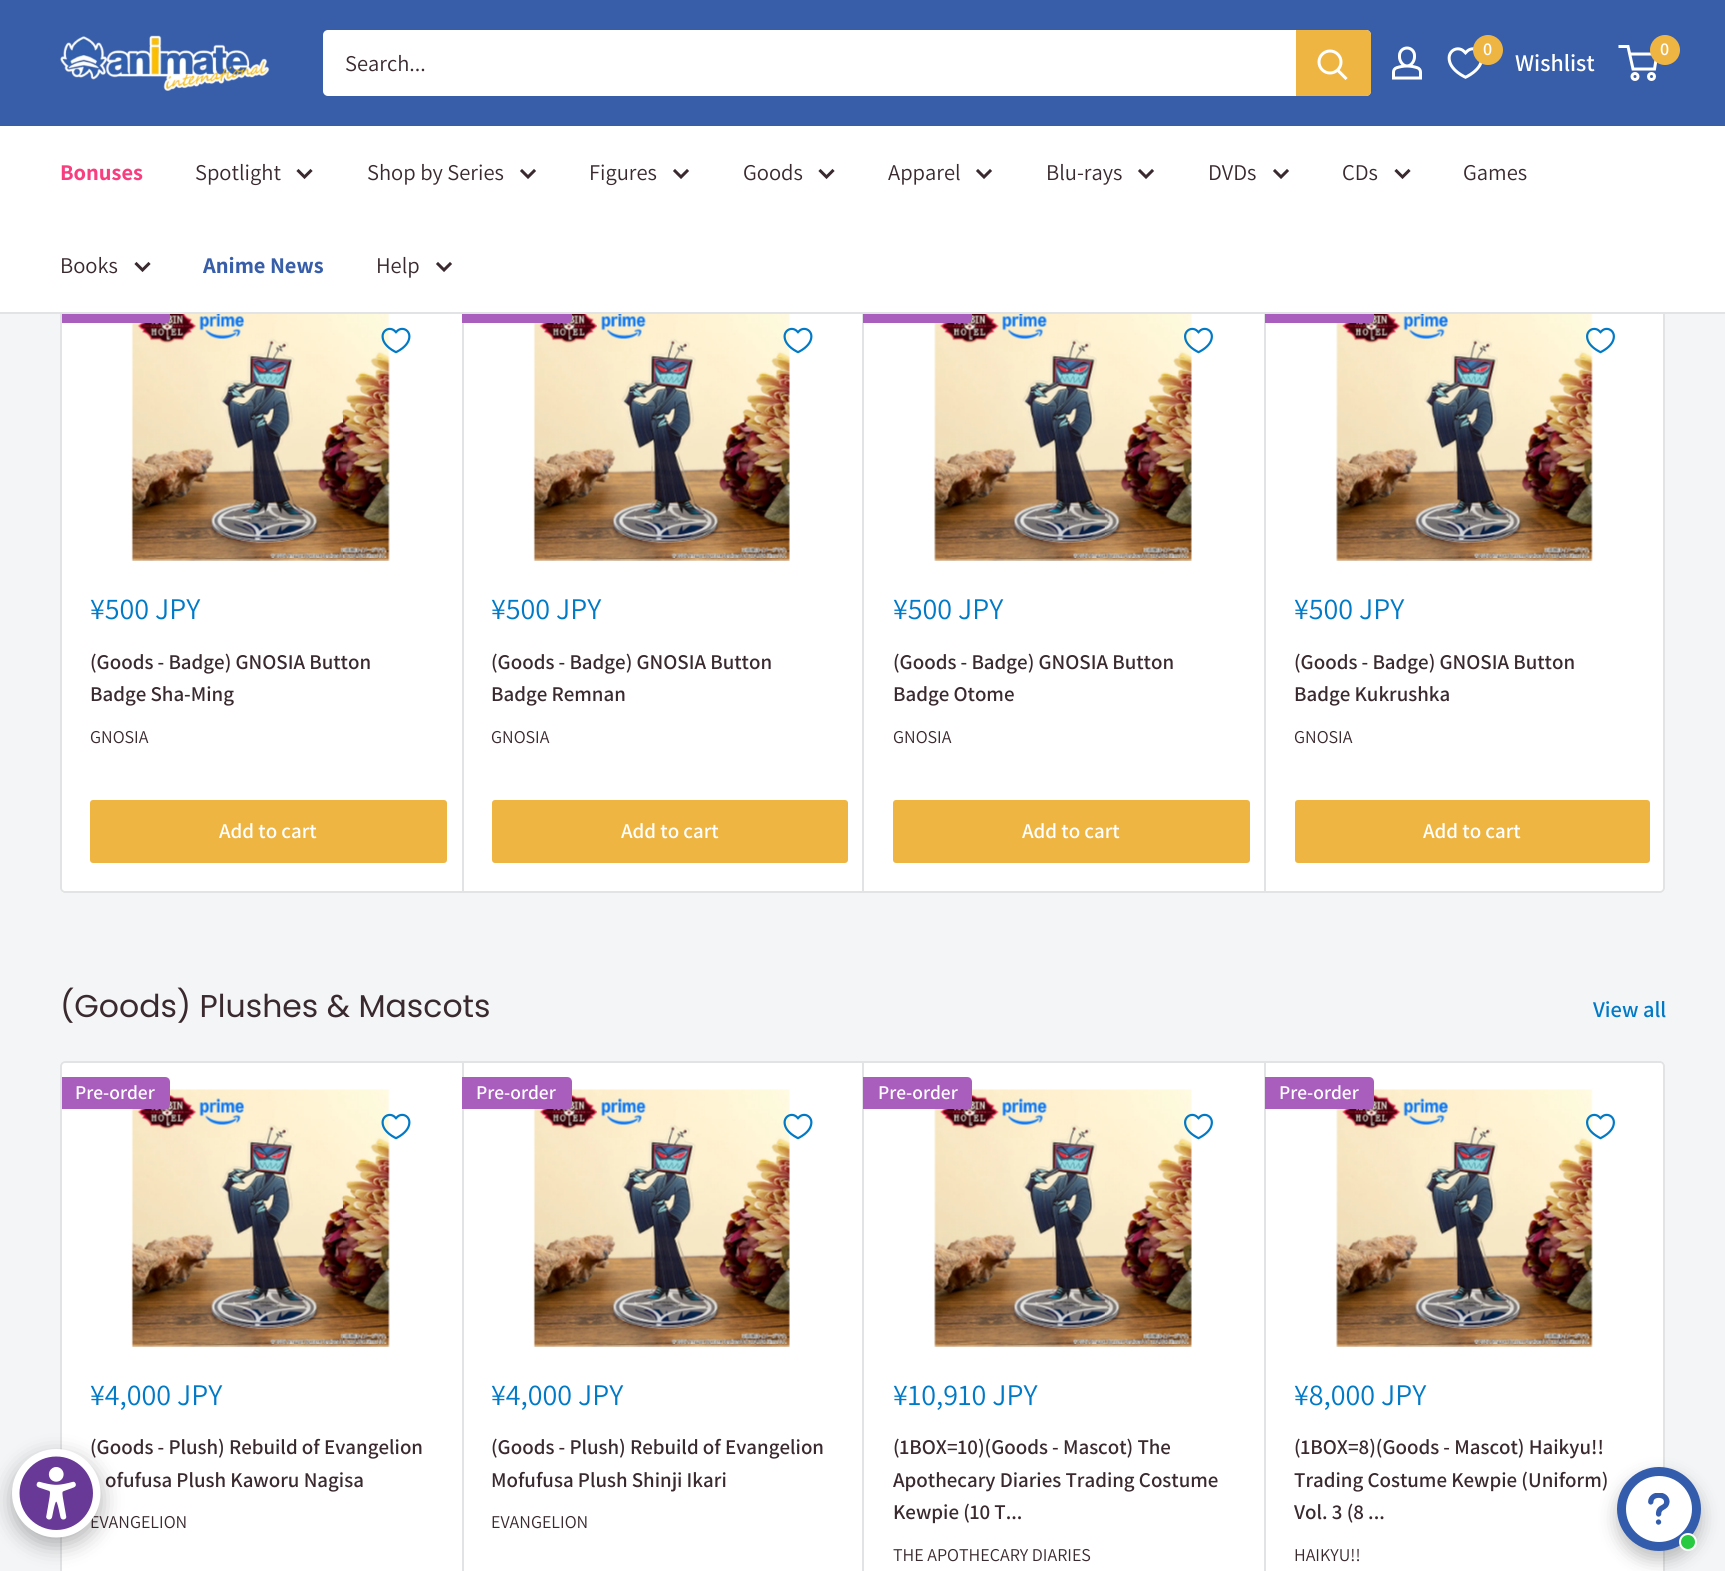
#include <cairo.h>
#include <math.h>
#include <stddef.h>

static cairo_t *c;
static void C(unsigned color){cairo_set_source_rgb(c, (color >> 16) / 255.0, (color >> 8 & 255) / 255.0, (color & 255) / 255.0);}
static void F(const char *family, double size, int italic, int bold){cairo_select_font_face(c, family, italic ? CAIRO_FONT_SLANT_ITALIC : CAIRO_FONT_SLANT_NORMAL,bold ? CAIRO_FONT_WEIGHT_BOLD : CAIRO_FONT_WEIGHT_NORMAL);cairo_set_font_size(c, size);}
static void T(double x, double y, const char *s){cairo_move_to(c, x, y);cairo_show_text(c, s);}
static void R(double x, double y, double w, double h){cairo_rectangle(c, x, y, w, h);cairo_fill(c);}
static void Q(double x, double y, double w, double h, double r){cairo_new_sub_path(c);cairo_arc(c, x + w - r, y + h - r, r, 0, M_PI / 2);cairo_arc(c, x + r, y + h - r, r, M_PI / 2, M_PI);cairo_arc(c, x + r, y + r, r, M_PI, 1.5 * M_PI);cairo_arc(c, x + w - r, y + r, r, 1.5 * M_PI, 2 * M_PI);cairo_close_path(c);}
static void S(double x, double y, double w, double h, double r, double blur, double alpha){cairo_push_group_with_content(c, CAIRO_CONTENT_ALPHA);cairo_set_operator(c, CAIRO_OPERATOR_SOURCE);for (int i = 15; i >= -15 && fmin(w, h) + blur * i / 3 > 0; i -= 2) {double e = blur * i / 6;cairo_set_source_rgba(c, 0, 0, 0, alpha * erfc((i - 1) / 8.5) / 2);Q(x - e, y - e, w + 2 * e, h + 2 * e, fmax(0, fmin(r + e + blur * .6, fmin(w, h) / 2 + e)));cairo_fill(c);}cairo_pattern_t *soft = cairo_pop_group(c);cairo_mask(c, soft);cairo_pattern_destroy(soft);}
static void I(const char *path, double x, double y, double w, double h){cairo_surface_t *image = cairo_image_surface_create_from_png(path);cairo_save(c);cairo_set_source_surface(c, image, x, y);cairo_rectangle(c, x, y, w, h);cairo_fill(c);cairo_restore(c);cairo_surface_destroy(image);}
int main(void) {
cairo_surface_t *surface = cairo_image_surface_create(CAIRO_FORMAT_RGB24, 1725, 1571);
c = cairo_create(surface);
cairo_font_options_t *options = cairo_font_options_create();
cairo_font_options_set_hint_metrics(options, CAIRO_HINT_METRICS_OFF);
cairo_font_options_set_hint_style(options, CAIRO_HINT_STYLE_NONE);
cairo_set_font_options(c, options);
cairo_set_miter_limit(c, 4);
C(0xf3f5f6);
cairo_paint(c);
C(0x385eaa);
R(0,0,1725,126);
I("1.png",60,35,210,56);
C(0xffffff);
Q(323,30,1048,66,5);
cairo_fill(c);
F("Assistant",22.5,0,0);
C(0x3a2a2f);
T(345,71,"Search...");
C(0xefb542);
cairo_new_path(c);
cairo_move_to(c,1296,30);
cairo_line_to(c,1366,30);
cairo_curve_to(c,1369,30,1371,32,1371,35);
cairo_line_to(c,1371,91);
cairo_curve_to(c,1371,94,1369,96,1366,96);
cairo_line_to(c,1296,96);
cairo_close_path(c);
cairo_fill(c);
cairo_new_path(c);
cairo_move_to(c,1345.5,78);
cairo_line_to(c,1338,70.5);
C(0xffffff);
cairo_set_line_width(c,3);
cairo_set_line_cap(c,CAIRO_LINE_CAP_SQUARE);
cairo_stroke(c);
cairo_arc(c,1330,62,11,0,2 * M_PI);
cairo_set_line_cap(c,CAIRO_LINE_CAP_BUTT);
cairo_stroke(c);
I("2.png",1392,46,30,34);
I("3.png",1447,47,36,32);
C(0xefb542);
cairo_arc(c,1488,50,15,0,2 * M_PI);
cairo_fill(c);
F("Assistant SemiBold",18,0,0);
C(0xffffff);
T(1483,55,"0");
F("Assistant SemiBold",24,0,0);
T(1515,71,"Wishlist");
cairo_new_path(c);
cairo_arc(c,1635,76.5,3,0,2 * M_PI);
cairo_stroke(c);
cairo_arc(c,1651.5,76.5,3,0,2 * M_PI);
cairo_stroke(c);
cairo_new_path(c);
cairo_move_to(c,1629.5,54);
cairo_line_to(c,1657,54);
cairo_line_to(c,1654.5,69);
cairo_line_to(c,1633,69);
cairo_line_to(c,1628,46.5);
cairo_line_to(c,1618.5,46.5);
cairo_stroke(c);
C(0xefb542);
cairo_arc(c,1665,50,15,0,2 * M_PI);
cairo_fill(c);
F("Assistant SemiBold",18,0,0);
C(0xffffff);
T(1660,55,"0");
Q(60,275,1605,618,5);
cairo_fill(c);
cairo_new_path(c);
cairo_move_to(c,65,275);
cairo_line_to(c,462,275);
cairo_line_to(c,462,893);
cairo_line_to(c,65,893);
cairo_curve_to(c,62,893,60,891,60,888);
cairo_line_to(c,60,280);
cairo_curve_to(c,60,277,62,275,65,275);
cairo_close_path(c);
cairo_fill(c);
I("4.png",131,314,259,247);
C(0xa95ebe);
cairo_new_path(c);
cairo_move_to(c,60,291);
cairo_line_to(c,165,291);
cairo_curve_to(c,168,291,170,293,170,296);
cairo_line_to(c,170,318);
cairo_curve_to(c,170,321,168,323,165,323);
cairo_line_to(c,60,323);
cairo_close_path(c);
cairo_fill(c);
F("Assistant",30,0,0);
C(0x0079c7);
T(90,619,"¥500 JPY");
F("Assistant SemiBold",21,0,0);
C(0x3a2a2f);
T(90,669,"(Goods - Badge) GNOSIA Button");
T(90,701,"Badge Sha-Ming");
F("Assistant",18,0,0);
T(90,743,"GNOSIA");
C(0xefb542);
Q(90,800,357,63,3);
cairo_fill(c);
F("Assistant SemiBold",21,0,0);
C(0xffffff);
T(219,838,"Add to cart");
C(0xe1e3e4);
cairo_new_path(c);
cairo_move_to(c,63,892);
cairo_line_to(c,65,893);
cairo_line_to(c,464,893);
cairo_line_to(c,464,275);
cairo_line_to(c,462,275);
cairo_line_to(c,462,892);
cairo_close_path(c);
cairo_fill(c);
I("5.png",381,327,30,27);
I("6.png",533,314,257,247);
C(0xa95ebe);
cairo_new_path(c);
cairo_move_to(c,462,291);
cairo_line_to(c,567,291);
cairo_curve_to(c,570,291,572,293,572,296);
cairo_line_to(c,572,318);
cairo_curve_to(c,572,321,570,323,567,323);
cairo_line_to(c,462,323);
cairo_close_path(c);
cairo_fill(c);
F("Assistant",30,0,0);
C(0x0079c7);
T(491,619,"¥500 JPY");
F("Assistant SemiBold",21,0,0);
C(0x3a2a2f);
T(491,669,"(Goods - Badge) GNOSIA Button");
T(491,701,"Badge Remnan");
F("Assistant",18,0,0);
T(491,743,"GNOSIA");
C(0xefb542);
Q(492,800,356,63,3);
cairo_fill(c);
F("Assistant SemiBold",21,0,0);
C(0xffffff);
T(621,838,"Add to cart");
C(0xe1e3e4);
cairo_new_path(c);
cairo_move_to(c,464,892);
cairo_line_to(c,464,893);
cairo_line_to(c,864,893);
cairo_line_to(c,864,275);
cairo_line_to(c,862,275);
cairo_line_to(c,862,892);
cairo_close_path(c);
cairo_fill(c);
I("7.png",783,327,30,27);
I("8.png",934,314,258,247);
C(0xa95ebe);
cairo_new_path(c);
cairo_move_to(c,863,291);
cairo_line_to(c,967,291);
cairo_curve_to(c,970,291,972,293,972,296);
cairo_line_to(c,972,318);
cairo_curve_to(c,972,321,970,323,967,323);
cairo_line_to(c,863,323);
cairo_close_path(c);
cairo_fill(c);
F("Assistant",30,0,0);
C(0x0079c7);
T(893,619,"¥500 JPY");
F("Assistant SemiBold",21,0,0);
C(0x3a2a2f);
T(893,669,"(Goods - Badge) GNOSIA Button");
T(893,701,"Badge Otome");
F("Assistant",18,0,0);
T(893,743,"GNOSIA");
C(0xefb542);
Q(893,800,357,63,3);
cairo_fill(c);
F("Assistant SemiBold",21,0,0);
C(0xffffff);
T(1022,838,"Add to cart");
cairo_new_path(c);
cairo_move_to(c,1265,275);
cairo_line_to(c,1660,275);
cairo_curve_to(c,1663,275,1665,277,1665,280);
cairo_line_to(c,1665,888);
cairo_curve_to(c,1665,891,1663,893,1660,893);
cairo_line_to(c,1265,893);
cairo_close_path(c);
cairo_fill(c);
C(0xe1e3e4);
cairo_new_path(c);
cairo_move_to(c,864,892);
cairo_line_to(c,864,893);
cairo_line_to(c,1266,893);
cairo_line_to(c,1266,275);
cairo_line_to(c,1264,275);
cairo_line_to(c,1264,892);
cairo_close_path(c);
cairo_fill(c);
I("9.png",1184,327,29,27);
I("10.png",1336,314,257,247);
C(0xa95ebe);
cairo_new_path(c);
cairo_move_to(c,1265,291);
cairo_line_to(c,1369,291);
cairo_curve_to(c,1372,291,1374,293,1374,296);
cairo_line_to(c,1374,318);
cairo_curve_to(c,1374,321,1372,323,1369,323);
cairo_line_to(c,1265,323);
cairo_close_path(c);
cairo_fill(c);
I("11.png",1586,327,29,27);
C(0xefb542);
Q(1295,800,355,63,3);
cairo_fill(c);
Q(61,276,1603,616,4);
C(0xe1e3e4);
cairo_set_line_width(c,2);
cairo_stroke(c);
C(0xffffff);
R(0,126,1725,186);
C(0xe1e3e4);
R(0,312,1725,2);
F("Assistant",22.5,0,1);
C(0xf73e7f);
T(60,180,"Bonuses");
F("Assistant",22.5,0,0);
C(0x3a2a2f);
T(195,180,"Spotlight");
cairo_new_path(c);
cairo_move_to(c,310.5,171);
cairo_line_to(c,304.5,177);
cairo_line_to(c,298.5,171);
cairo_set_line_width(c,3);
cairo_set_line_cap(c,CAIRO_LINE_CAP_SQUARE);
cairo_stroke(c);
T(367,180,"Shop by Series");
cairo_new_path(c);
cairo_move_to(c,534,171);
cairo_line_to(c,528,177);
cairo_line_to(c,522,171);
cairo_stroke(c);
T(589,180,"Figures");
cairo_new_path(c);
cairo_move_to(c,687,171);
cairo_line_to(c,681,177);
cairo_line_to(c,675,171);
cairo_stroke(c);
T(743,180,"Goods");
cairo_new_path(c);
cairo_move_to(c,832.5,171);
cairo_line_to(c,826.5,177);
cairo_line_to(c,820.5,171);
cairo_stroke(c);
T(888,180,"Apparel");
cairo_new_path(c);
cairo_move_to(c,990,171);
cairo_line_to(c,984,177);
cairo_line_to(c,978,171);
cairo_stroke(c);
T(1046,180,"Blu-rays");
cairo_new_path(c);
cairo_move_to(c,1152,171);
cairo_line_to(c,1146,177);
cairo_line_to(c,1140,171);
cairo_stroke(c);
T(1208,180,"DVDs");
cairo_new_path(c);
cairo_move_to(c,1287,171);
cairo_line_to(c,1281,177);
cairo_line_to(c,1275,171);
cairo_stroke(c);
T(1342,180,"CDs");
cairo_new_path(c);
cairo_move_to(c,1408.5,171);
cairo_line_to(c,1402.5,177);
cairo_line_to(c,1396.5,171);
cairo_stroke(c);
T(1463,180,"Games");
T(60,273,"Books");
cairo_new_path(c);
cairo_move_to(c,148.5,264);
cairo_line_to(c,142.5,270);
cairo_line_to(c,136.5,264);
cairo_stroke(c);
F("Assistant",22.5,0,1);
C(0x385eaa);
T(203,273,"Anime News");
F("Assistant",22.5,0,0);
C(0x3a2a2f);
T(376,273,"Help");
cairo_new_path(c);
cairo_move_to(c,450,264);
cairo_line_to(c,444,270);
cairo_line_to(c,438,264);
cairo_stroke(c);
F("Assistant",30,0,0);
C(0x0079c7);
T(1294,619,"¥500 JPY");
F("Assistant SemiBold",21,0,0);
C(0x3a2a2f);
T(1294,669,"(Goods - Badge) GNOSIA Button");
T(1294,701,"Badge Kukrushka");
F("Assistant",18,0,0);
T(1294,743,"GNOSIA");
F("Assistant SemiBold",21,0,0);
C(0xffffff);
T(1423,838,"Add to cart");
F("Poppins",31.5,0,0);
C(0x3a2a2f);
T(60,1017,"(Goods) Plushes & Mascots");
F("Assistant SemiBold",22.5,0,0);
C(0x0079c7);
T(1593,1017,"View all");
C(0xffffff);
Q(60,1061,1605,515,5);
cairo_fill(c);
cairo_new_path(c);
cairo_move_to(c,65,1061);
cairo_line_to(c,462,1061);
cairo_line_to(c,462,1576);
cairo_line_to(c,65,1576);
cairo_curve_to(c,62,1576,60,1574,60,1571);
cairo_line_to(c,60,1066);
cairo_curve_to(c,60,1063,62,1061,65,1061);
cairo_close_path(c);
cairo_fill(c);
I("12.png",131,1089,259,258);
C(0xa95ebe);
cairo_new_path(c);
cairo_move_to(c,60,1077);
cairo_line_to(c,165,1077);
cairo_curve_to(c,168,1077,170,1079,170,1082);
cairo_line_to(c,170,1104);
cairo_curve_to(c,170,1107,168,1109,165,1109);
cairo_line_to(c,60,1109);
cairo_close_path(c);
cairo_fill(c);
I("5.png",381,1113,30,27);
C(0xe1e3e4);
R(462,1061,2,510);
I("13.png",533,1089,257,258);
C(0xa95ebe);
cairo_new_path(c);
cairo_move_to(c,462,1077);
cairo_line_to(c,567,1077);
cairo_curve_to(c,570,1077,572,1079,572,1082);
cairo_line_to(c,572,1104);
cairo_curve_to(c,572,1107,570,1109,567,1109);
cairo_line_to(c,462,1109);
cairo_close_path(c);
cairo_fill(c);
I("7.png",783,1113,30,27);
C(0xe1e3e4);
R(862,1061,2,510);
I("14.png",934,1089,258,258);
C(0xa95ebe);
cairo_new_path(c);
cairo_move_to(c,863,1077);
cairo_line_to(c,967,1077);
cairo_curve_to(c,970,1077,972,1079,972,1082);
cairo_line_to(c,972,1104);
cairo_curve_to(c,972,1107,970,1109,967,1109);
cairo_line_to(c,863,1109);
cairo_close_path(c);
cairo_fill(c);
I("9.png",1184,1113,29,27);
C(0xffffff);
cairo_new_path(c);
cairo_move_to(c,1265,1061);
cairo_line_to(c,1660,1061);
cairo_curve_to(c,1663,1061,1665,1063,1665,1066);
cairo_line_to(c,1665,1571);
cairo_curve_to(c,1665,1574,1663,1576,1660,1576);
cairo_line_to(c,1265,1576);
cairo_close_path(c);
cairo_fill(c);
C(0xe1e3e4);
R(1264,1061,2,510);
I("15.png",1336,1089,257,258);
C(0xa95ebe);
cairo_new_path(c);
cairo_move_to(c,1265,1077);
cairo_line_to(c,1369,1077);
cairo_curve_to(c,1372,1077,1374,1079,1374,1082);
cairo_line_to(c,1374,1104);
cairo_curve_to(c,1374,1107,1372,1109,1369,1109);
cairo_line_to(c,1265,1109);
cairo_close_path(c);
cairo_fill(c);
I("11.png",1586,1113,29,27);
Q(61,1062,1603,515,4);
C(0xe1e3e4);
cairo_set_line_width(c,2);
cairo_set_line_cap(c,CAIRO_LINE_CAP_BUTT);
cairo_stroke(c);
F("Assistant SemiBold",19.5,0,0);
C(0xffffff);
T(75,1099,"Pre-order");
F("Assistant",30,0,0);
C(0x0079c7);
T(90,1405,"¥4,000 JPY");
F("Assistant SemiBold",21,0,0);
C(0x3a2a2f);
T(90,1454,"(Goods - Plush) Rebuild of Evangelion");
T(105,1487,"ofufusa Plush Kaworu Nagisa");
F("Assistant",18,0,0);
T(90,1528,"EVANGELION");
F("Assistant SemiBold",19.5,0,0);
C(0xffffff);
T(476,1099,"Pre-order");
F("Assistant",30,0,0);
C(0x0079c7);
T(491,1405,"¥4,000 JPY");
F("Assistant SemiBold",21,0,0);
C(0x3a2a2f);
T(491,1454,"(Goods - Plush) Rebuild of Evangelion");
T(491,1487,"Mofufusa Plush Shinji Ikari");
F("Assistant",18,0,0);
T(491,1528,"EVANGELION");
F("Assistant SemiBold",19.5,0,0);
C(0xffffff);
T(878,1099,"Pre-order");
F("Assistant",30,0,0);
C(0x0079c7);
T(893,1405,"¥10,910 JPY");
F("Assistant SemiBold",21,0,0);
C(0x3a2a2f);
T(893,1454,"(1BOX=10)(Goods - Mascot) The");
T(893,1487,"Apothecary Diaries Trading Costume");
T(893,1519,"Kewpie (10 T...");
F("Assistant",18,0,0);
T(893,1561,"THE APOTHECARY DIARIES");
F("Assistant SemiBold",19.5,0,0);
C(0xffffff);
T(1279,1099,"Pre-order");
F("Assistant",30,0,0);
C(0x0079c7);
T(1294,1405,"¥8,000 JPY");
F("Assistant SemiBold",21,0,0);
C(0x3a2a2f);
T(1294,1454,"(1BOX=8)(Goods - Mascot) Haikyu!!");
T(1294,1487,"Trading Costume Kewpie (Uniform)");
T(1294,1519,"Vol. 3 (8 ...");
F("Assistant",18,0,0);
T(1294,1561,"HAIKYU!!");
C(0x000000);
S(1617,1476,84,84,42,9,.25);
C(0x345cac);
cairo_arc(c,1659,1509,42,0,2 * M_PI);
cairo_fill(c);
C(0xffffff);
cairo_arc(c,1659,1509,33,0,2 * M_PI);
cairo_fill(c);
I("16.png",1648,1493,22,32);
C(0x27ca40);
cairo_arc(c,1688,1542,8,0,2 * M_PI);
cairo_fill_preserve(c);
C(0xffffff);
cairo_stroke(c);
C(0x000000);
S(12,1457,89,88,44,11,.3);
I("17.png",12,1449,89,89);
cairo_surface_write_to_png(surface, "o.png");
cairo_font_options_destroy(options);
cairo_destroy(c);
cairo_surface_destroy(surface);
return 0;
}
